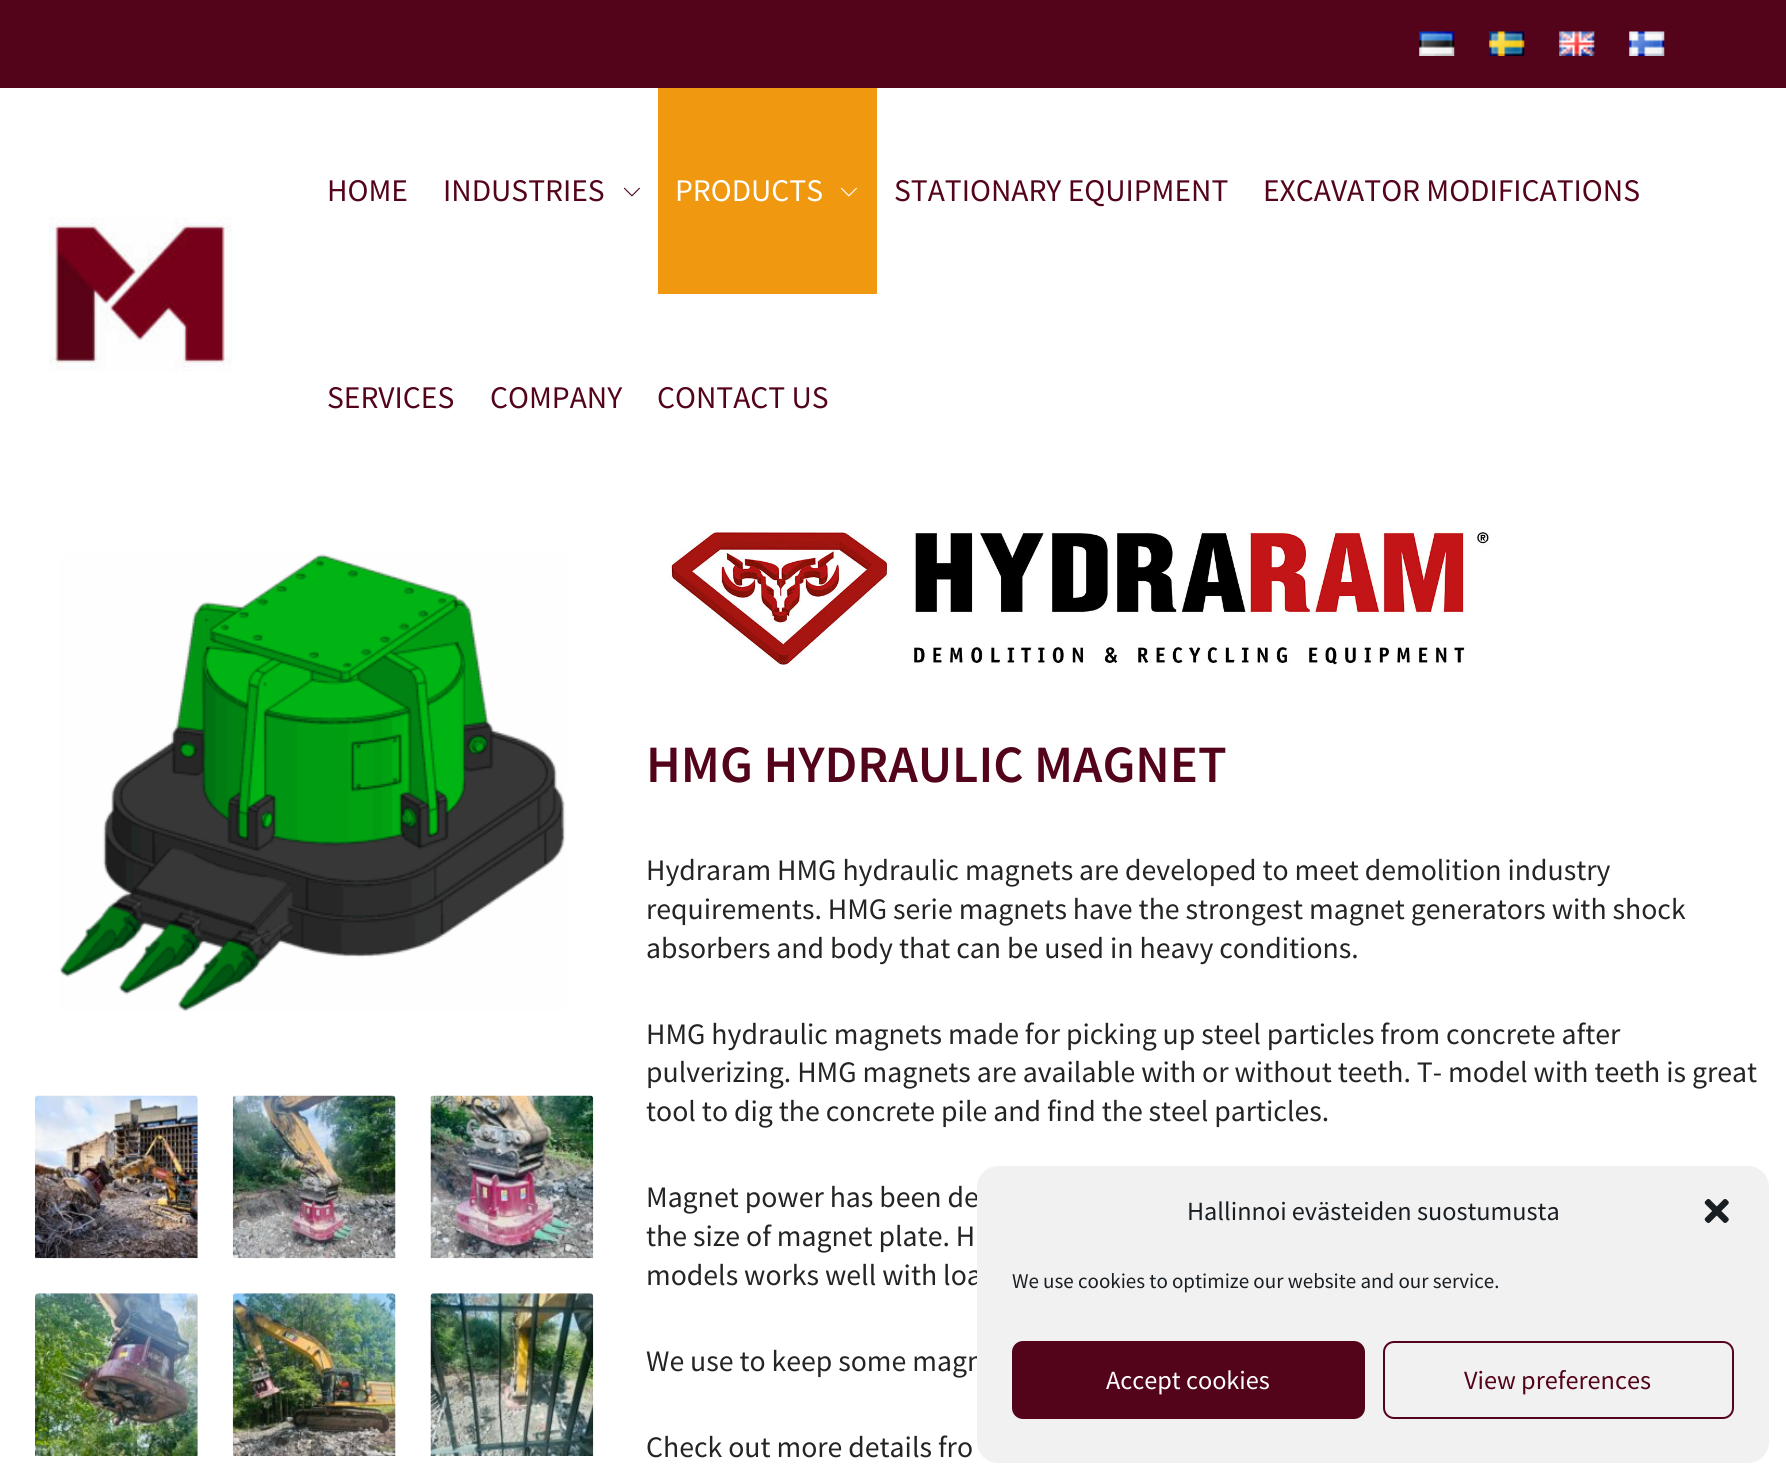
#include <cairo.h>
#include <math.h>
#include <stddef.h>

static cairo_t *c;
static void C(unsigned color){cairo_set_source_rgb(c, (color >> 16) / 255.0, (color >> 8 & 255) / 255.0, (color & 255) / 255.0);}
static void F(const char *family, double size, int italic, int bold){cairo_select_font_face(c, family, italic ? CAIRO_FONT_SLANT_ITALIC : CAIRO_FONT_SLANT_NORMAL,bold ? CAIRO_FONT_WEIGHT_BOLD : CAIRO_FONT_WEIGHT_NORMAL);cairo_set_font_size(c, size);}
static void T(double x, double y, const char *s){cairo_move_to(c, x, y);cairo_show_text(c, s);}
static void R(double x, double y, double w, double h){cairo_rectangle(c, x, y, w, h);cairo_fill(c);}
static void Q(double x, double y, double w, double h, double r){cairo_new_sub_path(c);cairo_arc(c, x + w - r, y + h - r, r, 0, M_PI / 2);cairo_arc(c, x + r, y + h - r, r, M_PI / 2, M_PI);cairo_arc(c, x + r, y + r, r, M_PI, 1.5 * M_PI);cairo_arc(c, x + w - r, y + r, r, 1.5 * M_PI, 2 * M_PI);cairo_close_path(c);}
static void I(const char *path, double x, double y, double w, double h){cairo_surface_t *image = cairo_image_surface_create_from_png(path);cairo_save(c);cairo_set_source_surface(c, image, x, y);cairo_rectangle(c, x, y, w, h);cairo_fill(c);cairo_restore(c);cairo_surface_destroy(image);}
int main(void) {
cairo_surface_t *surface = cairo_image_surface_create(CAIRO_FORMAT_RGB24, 1786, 1480);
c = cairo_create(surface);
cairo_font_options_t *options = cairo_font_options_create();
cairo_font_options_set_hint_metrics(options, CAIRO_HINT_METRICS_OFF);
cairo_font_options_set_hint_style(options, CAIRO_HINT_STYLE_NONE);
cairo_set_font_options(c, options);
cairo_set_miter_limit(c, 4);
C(0xffffff);
cairo_paint(c);
C(0x54041a);
R(0,0,1786,88);
I("1.png",1419,31,36,25);
I("2.png",1489,31,36,25);
I("3.png",1559,31,36,25);
I("4.png",1629,31,36,25);
I("5.png",49,217,183,154);
F("Source Sans Pro",31.5,0,0);
T(327,201,"HOME");
T(443,201,"INDUSTRIES");
I("6.png",623,187,17,10);
C(0xef9810);
R(658,88,219,206);
C(0xffffff);
T(675,201,"PRODUCTS");
I("7.png",840,187,17,10);
C(0x54041a);
T(894,201,"STATIONARY EQUIPMENT");
T(1263,201,"EXCAVATOR MODIFICATIONS");
T(327,408,"SERVICES");
T(490,408,"COMPANY");
T(657,408,"CONTACT US");
I("8.png",59,554,507,458);
I("9.png",35,1095,163,164);
I("10.png",232,1095,164,164);
I("11.png",430,1095,164,164);
I("12.png",35,1293,163,163);
I("13.png",232,1293,164,163);
I("14.png",430,1293,164,163);
I("15.png",669,532,822,133);
F("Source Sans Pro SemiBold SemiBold",52.5,0,0);
T(646,782,"HMG HYDRAULIC MAGNET");
F("Source Sans Pro",29.75,0,0);
C(0x242424);
T(646,880,"Hydraram HMG hydraulic magnets are developed to meet demolition industry");
T(646,919,"requirements. HMG serie magnets have the strongest magnet generators with shock");
T(646,958,"absorbers and body that can be used in heavy conditions.");
T(646,1044,"HMG hydraulic magnets made for picking up steel particles from concrete after");
T(646,1082,"pulverizing. HMG magnets are available with or without teeth. T- model with teeth is great");
T(646,1121,"tool to dig the concrete pile and find the steel particles.");
T(646,1207,"Magnet power has been de");
T(646,1246,"the size of magnet plate. H");
T(646,1285,"models works well with loa");
T(646,1371,"We use to keep some magn");
T(646,1457,"Check out more details fro");
C(0xf1f1f1);
Q(977,1166,792,297,21);
cairo_fill(c);
F("Source Sans Pro",26.25,0,0);
C(0x191e23);
T(1187,1220,"Hallinnoi evästeiden suostumusta");
I("16.png",1704,1199,25,24);
F("Source Sans Pro",21,0,0);
T(1012,1288,"We use cookies to optimize our website and our service.");
C(0x54041a);
Q(1013,1342,351,76,10);
cairo_fill_preserve(c);
cairo_stroke(c);
F("Source Sans Pro",26.25,0,0);
C(0xffffff);
T(1106,1389,"Accept cookies");
Q(1384,1342,349,76,10);
C(0x54041a);
cairo_stroke(c);
T(1464,1389,"View preferences");
cairo_surface_write_to_png(surface, "o.png");
cairo_font_options_destroy(options);
cairo_destroy(c);
cairo_surface_destroy(surface);
return 0;
}
